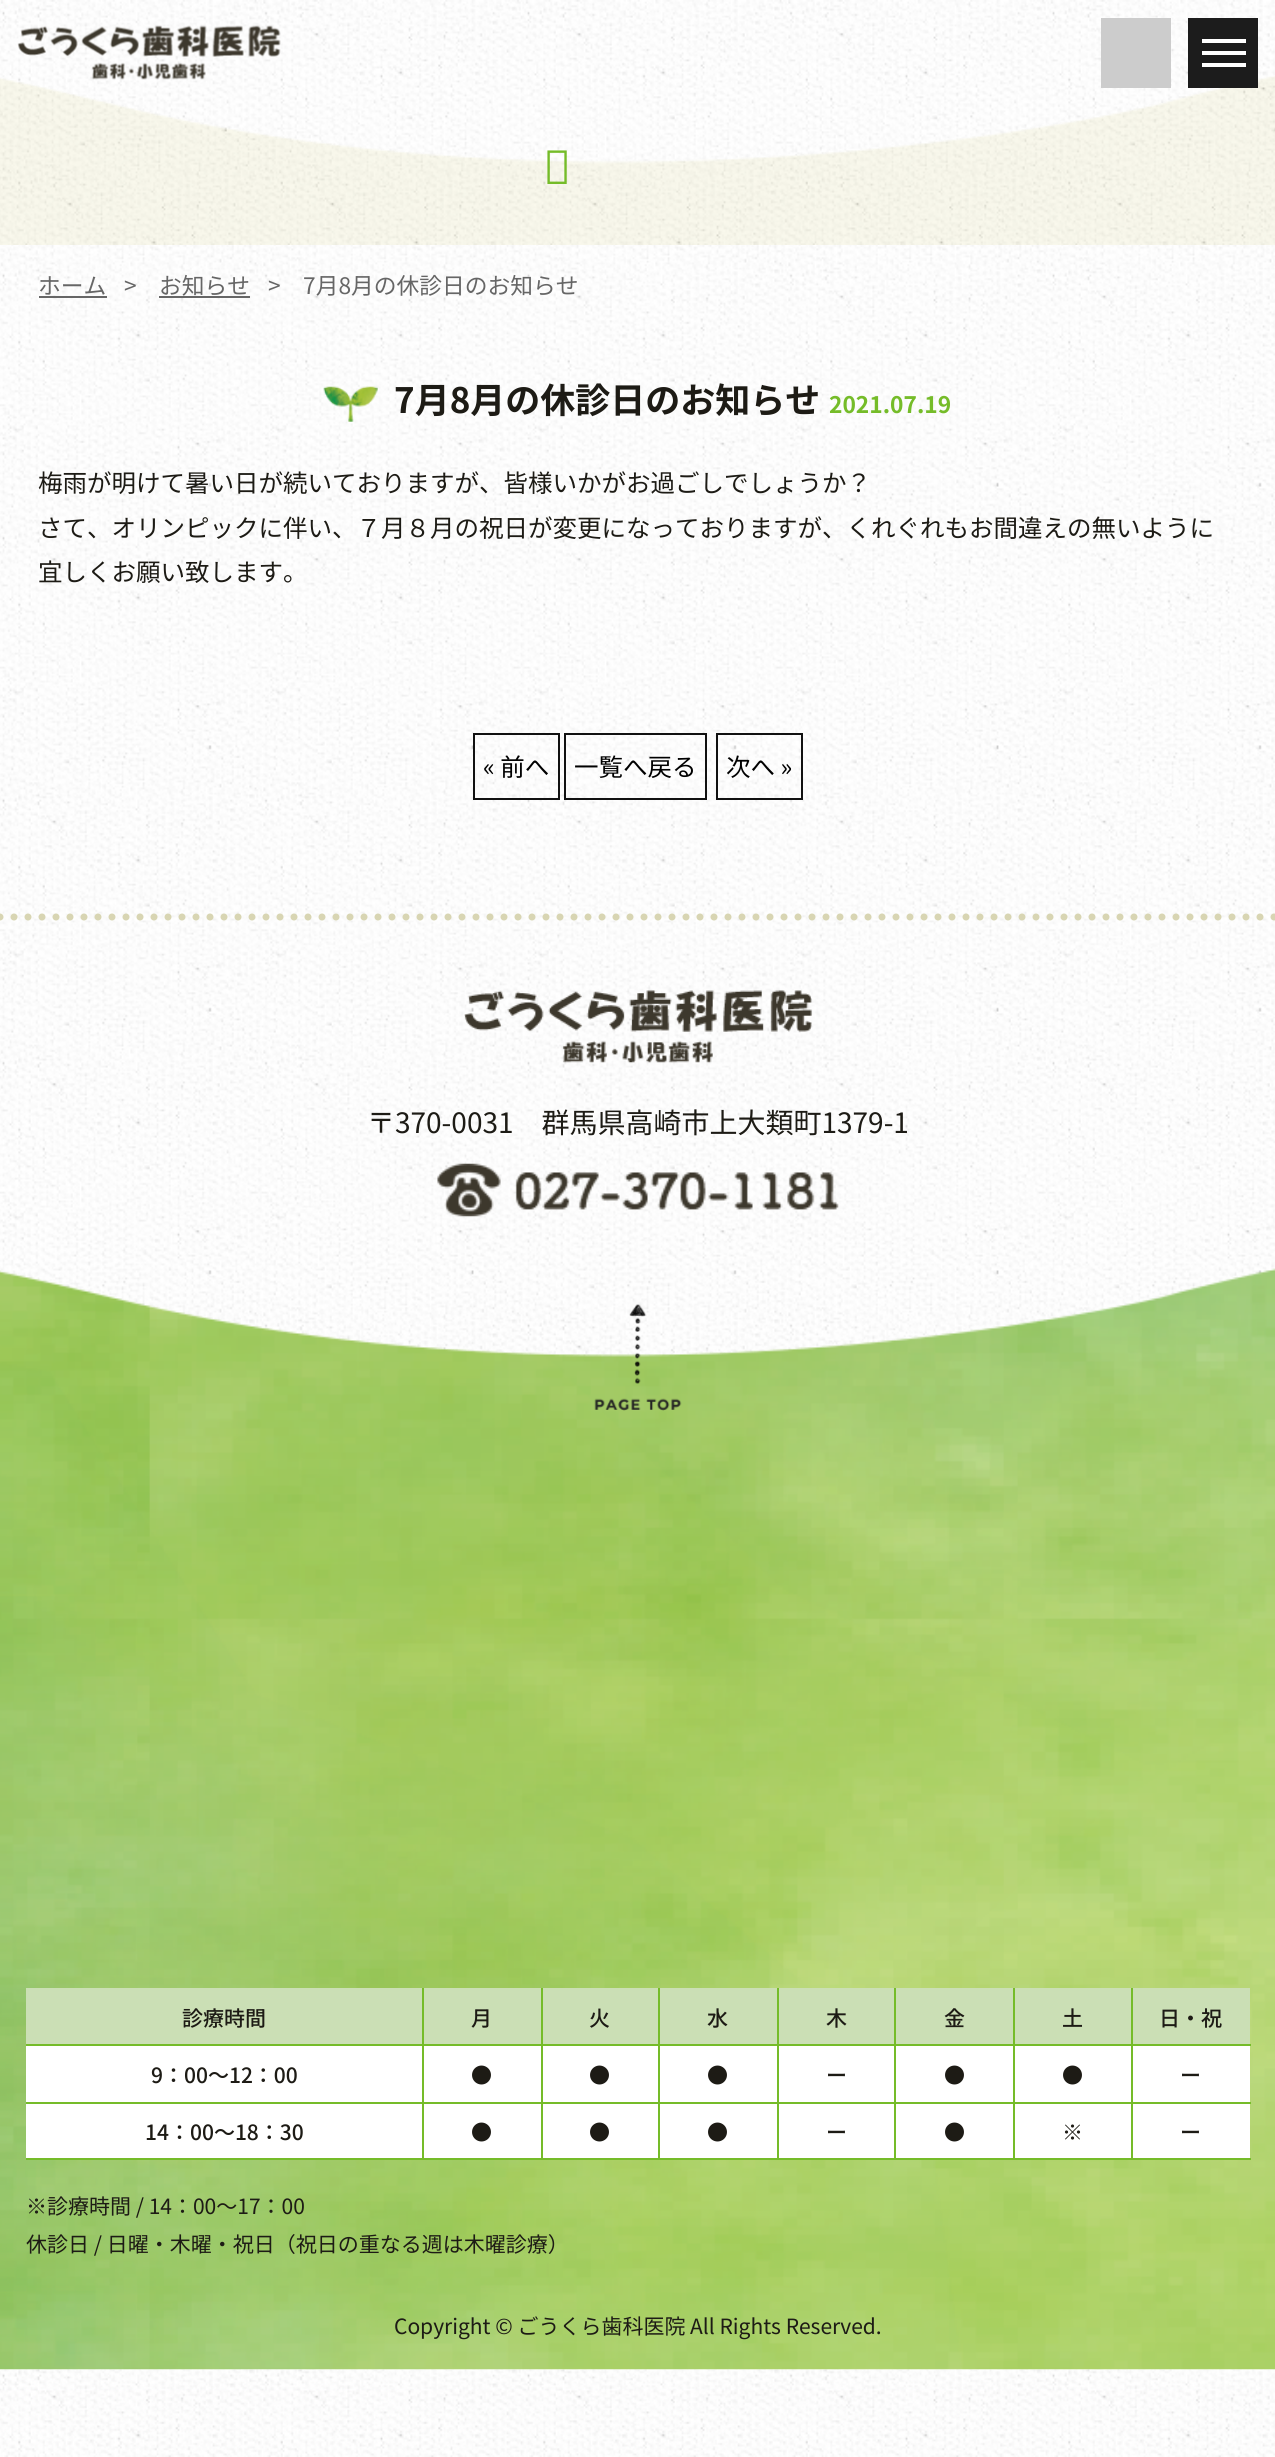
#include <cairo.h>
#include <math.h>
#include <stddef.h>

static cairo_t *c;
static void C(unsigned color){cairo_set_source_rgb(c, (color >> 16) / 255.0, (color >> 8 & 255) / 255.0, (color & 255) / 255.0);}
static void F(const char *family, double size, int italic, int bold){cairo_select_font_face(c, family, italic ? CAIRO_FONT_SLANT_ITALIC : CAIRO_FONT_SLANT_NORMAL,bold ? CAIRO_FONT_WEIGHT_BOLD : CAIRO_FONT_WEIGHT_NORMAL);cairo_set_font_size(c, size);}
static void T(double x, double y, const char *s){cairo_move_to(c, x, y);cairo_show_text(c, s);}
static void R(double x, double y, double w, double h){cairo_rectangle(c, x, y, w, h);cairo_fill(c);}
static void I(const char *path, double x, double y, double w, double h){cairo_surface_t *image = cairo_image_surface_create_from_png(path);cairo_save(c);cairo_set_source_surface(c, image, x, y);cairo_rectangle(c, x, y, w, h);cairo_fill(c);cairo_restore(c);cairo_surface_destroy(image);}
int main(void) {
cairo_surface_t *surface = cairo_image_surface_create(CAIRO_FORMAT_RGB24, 1275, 2457);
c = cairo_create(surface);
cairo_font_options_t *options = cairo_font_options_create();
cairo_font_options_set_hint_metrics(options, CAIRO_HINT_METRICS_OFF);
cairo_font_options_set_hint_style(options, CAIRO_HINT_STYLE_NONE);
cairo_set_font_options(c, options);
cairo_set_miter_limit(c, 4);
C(0xffffff);
cairo_paint(c);
I("1.png",0,0,1275,2457);
I("3.png",0,76,1275,169);
I("2.png",17,25,264,55);
C(0xcccccc);
R(1101,18,70,70);
C(0x1c1c1c);
R(1188,18,70,70);
C(0xffffff);
R(1202,39,44,4);
R(1202,51,44,4);
R(1202,63,44,4);
F("Noto Sans Thin",47,0,0);
C(0x75bc29);
T(543,184,"お");
cairo_new_path(c);
cairo_move_to(c,0,917);
cairo_line_to(c,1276,917);
C(0xd8d5b3);
cairo_set_line_width(c,7);
cairo_set_line_cap(c,CAIRO_LINE_CAP_ROUND);
cairo_set_dash(c,(double[]){0,14},2,0);
cairo_stroke(c);
F("Noto Sans JP",22.75,0,0);
C(0x666666);
T(38,294,"ホーム");
R(39,296,68,2);
T(124,294,">");
T(159,294,"お知らせ");
R(159,296,91,2);
T(268,294,">");
T(303,294,"7月8月の休診日のお知らせ");
I("4.png",323,386,55,36);
F("Noto Sans JP",35,0,1);
C(0x1d1b15);
T(394,413,"7月8月の休診日のお知らせ");
F("Noto Sans JP",22.75,0,1);
C(0x75bc29);
T(829,413,"2021.07.19");
F("Noto Sans JP",24.5,0,0);
C(0x1d1b15);
T(38,492,"梅雨が明けて暑い日が続いておりますが、皆様いかがお過ごしでしょうか？");
T(38,537,"さて、オリンピックに伴い、７月８月の祝日が変更になっておりますが、くれぐれもお間違えの無いように");
T(38,581,"宜しくお願い致します。");
cairo_rectangle(c,474,734,85,65);
C(0x111111);
cairo_set_line_width(c,2);
cairo_set_line_cap(c,CAIRO_LINE_CAP_BUTT);
cairo_set_dash(c,NULL,0,0);
cairo_stroke(c);
C(0x000000);
T(483,776,"« 前へ");
cairo_rectangle(c,565,734,141,65);
C(0x111111);
cairo_stroke(c);
C(0x000000);
T(574,776,"一覧へ戻る");
cairo_rectangle(c,717,734,85,65);
C(0x111111);
cairo_stroke(c);
C(0x000000);
T(726,776,"次へ »");
I("5.png",0,1268,1275,1102);
I("6.png",464,990,348,73);
F("Noto Sans JP",28,0,0);
C(0x1d1b15);
T(367,1133,"〒370-0031　群馬県高崎市上大類町1379-1");
I("7.png",437,1163,402,54);
I("8.png",594,1304,88,107);
C(0xffffff);
R(26,2046,1224,112);
C(0xcbdfb5);
R(26,1988,396,56);
C(0x75bc29);
R(1131,2158,120,2);
R(1131,2102,2,58);
R(1131,2102,120,2);
R(1131,2044,2,60);
R(1131,2044,120,2);
R(1131,1988,2,58);
R(1013,2158,119,2);
R(1013,2102,2,58);
R(1013,2102,119,2);
R(1013,2044,2,60);
R(1013,2044,119,2);
R(1013,1988,2,58);
R(894,2158,121,2);
R(894,2102,2,58);
R(894,2102,121,2);
R(894,2044,2,60);
R(894,2044,121,2);
R(894,1988,2,58);
R(777,2158,119,2);
R(777,2102,2,58);
R(777,2102,119,2);
R(777,2044,2,60);
R(777,2044,119,2);
R(777,1988,2,58);
R(658,2158,121,2);
R(658,2102,2,58);
R(658,2102,121,2);
R(658,2044,2,60);
R(658,2044,121,2);
R(658,1988,2,58);
R(541,2158,119,2);
R(541,2102,2,58);
R(541,2102,119,2);
R(541,2044,2,60);
R(541,2044,119,2);
R(541,1988,2,58);
R(422,2158,121,2);
R(422,2102,2,58);
R(422,2102,121,2);
R(422,2044,2,60);
R(422,2044,121,2);
R(422,1988,2,58);
R(26,2044,398,2);
F("Noto Sans JP Medium",21,0,0);
C(0x1d1b15);
T(182,2026,"診療時間");
C(0xcbdfb5);
R(424,1988,117,56);
C(0x1d1b15);
T(471,2026,"月");
C(0xcbdfb5);
R(543,1988,115,56);
C(0x1d1b15);
T(589,2026,"火");
C(0xcbdfb5);
R(660,1988,117,56);
C(0x1d1b15);
T(707,2026,"水");
C(0xcbdfb5);
R(779,1988,115,56);
C(0x1d1b15);
T(826,2026,"木");
C(0xcbdfb5);
R(896,1988,117,56);
C(0x1d1b15);
T(944,2026,"金");
C(0xcbdfb5);
R(1015,1988,116,56);
C(0x1d1b15);
T(1062,2026,"土");
C(0xcbdfb5);
R(1133,1988,117,56);
C(0x1d1b15);
T(1159,2026,"日・祝");
C(0x75bc29);
R(26,2102,398,2);
C(0x1d1b15);
T(151,2083,"9：00～12：00");
T(471,2083,"●");
T(589,2083,"●");
T(707,2083,"●");
T(826,2083,"ー");
T(944,2083,"●");
T(1062,2083,"●");
T(1180,2083,"ー");
C(0x75bc29);
R(26,2158,398,2);
C(0x1d1b15);
T(145,2140,"14：00～18：30");
T(471,2140,"●");
T(589,2140,"●");
T(707,2140,"●");
T(826,2140,"ー");
T(944,2140,"●");
T(1062,2140,"※");
T(1180,2140,"ー");
F("Noto Sans JP",21,0,0);
T(26,2214,"※診療時間 / 14：00～17：00");
T(26,2252,"休診日 / 日曜・木曜・祝日（祝日の重なる週は木曜診療）");
T(394,2334,"Copyright © ごうくら歯科医院 All Rights Reserved.");
cairo_surface_write_to_png(surface, "o.png");
cairo_font_options_destroy(options);
cairo_destroy(c);
cairo_surface_destroy(surface);
return 0;
}
